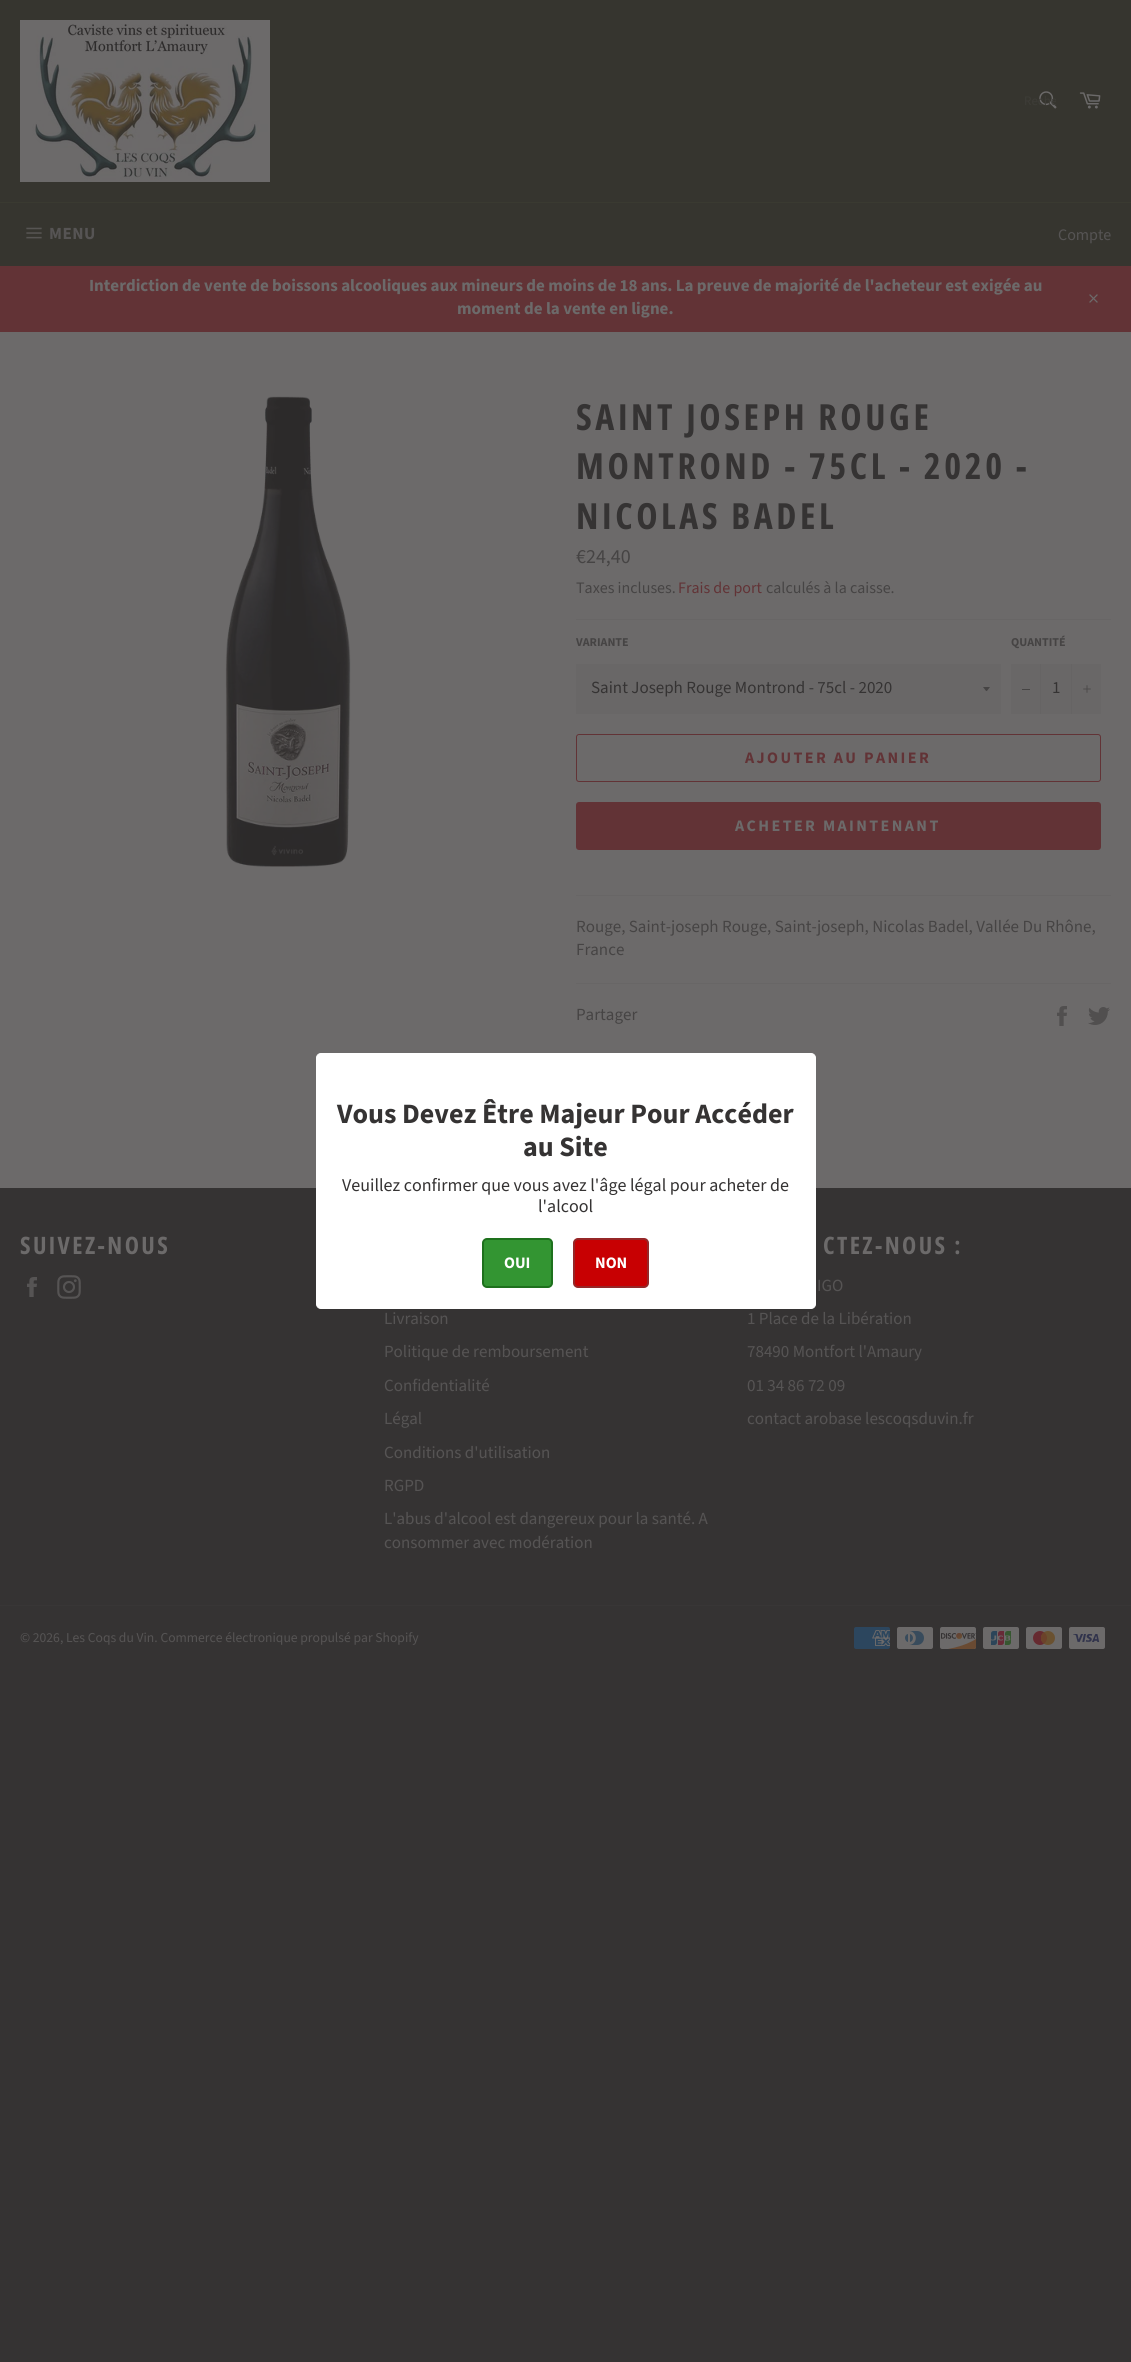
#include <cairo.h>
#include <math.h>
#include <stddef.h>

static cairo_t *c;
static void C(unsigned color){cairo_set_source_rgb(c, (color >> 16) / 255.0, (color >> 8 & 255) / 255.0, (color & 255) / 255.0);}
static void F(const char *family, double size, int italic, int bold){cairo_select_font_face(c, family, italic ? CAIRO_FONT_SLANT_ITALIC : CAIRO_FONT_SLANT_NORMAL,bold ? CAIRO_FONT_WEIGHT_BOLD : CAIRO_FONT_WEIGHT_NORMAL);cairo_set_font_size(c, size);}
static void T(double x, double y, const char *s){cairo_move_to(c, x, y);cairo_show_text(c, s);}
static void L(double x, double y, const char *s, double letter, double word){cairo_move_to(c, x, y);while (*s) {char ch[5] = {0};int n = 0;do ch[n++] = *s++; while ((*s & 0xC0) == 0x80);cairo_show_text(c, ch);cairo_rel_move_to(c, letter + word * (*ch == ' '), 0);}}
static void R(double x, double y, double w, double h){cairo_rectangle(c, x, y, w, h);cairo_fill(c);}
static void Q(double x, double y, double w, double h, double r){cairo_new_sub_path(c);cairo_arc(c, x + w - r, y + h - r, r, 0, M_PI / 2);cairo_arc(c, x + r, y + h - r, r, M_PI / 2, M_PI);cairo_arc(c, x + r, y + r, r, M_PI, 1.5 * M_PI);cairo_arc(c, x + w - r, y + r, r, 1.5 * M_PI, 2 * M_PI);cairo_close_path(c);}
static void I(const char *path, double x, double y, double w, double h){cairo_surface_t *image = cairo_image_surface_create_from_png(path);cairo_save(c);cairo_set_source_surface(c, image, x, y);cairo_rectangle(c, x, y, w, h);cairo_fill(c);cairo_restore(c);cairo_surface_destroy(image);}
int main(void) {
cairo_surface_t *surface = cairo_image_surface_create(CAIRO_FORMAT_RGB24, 1131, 2362);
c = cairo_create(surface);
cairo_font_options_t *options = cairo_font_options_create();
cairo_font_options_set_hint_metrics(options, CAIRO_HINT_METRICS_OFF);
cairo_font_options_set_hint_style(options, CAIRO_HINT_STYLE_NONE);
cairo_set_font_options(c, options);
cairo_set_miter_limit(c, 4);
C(0x353333);
cairo_paint(c);
C(0x36352f);
R(0,0,1131,202);
I("1.png",20,20,250,162);
I("2.png",1039,91,18,18);
cairo_save(c);
cairo_rectangle(c,1024,92,32,18);
cairo_clip(c);
F("Source Sans Pro",13,0,0);
C(0x3d3c37);
T(1024,105,"Reche");
cairo_restore(c);
I("3.png",1079,92,22,17);
R(0,203,1131,63);
C(0x3a3a31);
R(0,202,1131,1);
I("4.png",26,227,16,12);
F("Source Sans Pro",17,0,1);
C(0x565454);
L(49,239,"MENU",.5,0);
F("Source Sans Pro",16,0,0);
T(1058,240,"Compte");
C(0x623336);
R(0,266,1131,66);
F("Source Sans Pro",17,0,1);
C(0x6c6a6a);
T(89,291,"Interdiction de vente de boissons alcooliques aux mineurs de moins de 18 ans. La preuve de majorité de l'acheteur est exigée au");
T(457,314,"moment de la vente en ligne.");
I("5.png",1089,294,9,9);
R(0,332,1131,856);
I("6.png",225,396,126,471);
F("Open Sans Condensed",36,0,1);
C(0x353333);
L(576,430,"SAINT JOSEPH ROUGE",3.6,0);
L(576,479,"MONTROND - 75CL - 2020 -",3.6,0);
L(576,529,"NICOLAS BADEL",3.6,0);
F("Source Sans Pro",20,0,0);
C(0x464444);
T(576,563,"€24,40");
F("Source Sans Pro",16,0,0);
T(576,593,"Taxes incluses.");
C(0x623336);
T(678,593,"Frais de port");
C(0x464444);
T(766,593,"calculés à la caisse.");
C(0x686666);
R(576,619,535,1);
F("Source Sans Pro",12,0,1);
C(0x464444);
T(576,646,"VARIANTE");
C(0x696767);
R(576,664,425,50);
C(0x464444);
cairo_new_path(c);
cairo_move_to(c,983,687);
cairo_curve_to(c,987.5,692.5,985.5,692.5,990,687);
cairo_close_path(c);
cairo_fill(c);
F("Source Sans Pro",17,0,0);
C(0x353333);
T(591,693,"Saint Joseph Rouge Montrond - 75cl - 2020");
F("Source Sans Pro",12,0,1);
C(0x464444);
T(1011,646,"QUANTITÉ");
C(0x696767);
R(1011,664,90,50);
C(0x666464);
R(1040,664,1,50);
C(0x464444);
R(1022,689,8,1);
F("Source Sans Pro",17,0,0);
C(0x353333);
T(1052,693,"1");
C(0x666464);
R(1071,664,1,50);
I("7.png",1083,685,8,8);
Q(576.5,734.5,524,47,2.5);
C(0x623336);
cairo_set_line_width(c,1);
cairo_stroke(c);
F("Source Sans Pro",16,0,1);
L(745,763,"AJOUTER AU PANIER",2.4,0);
Q(576,802,525,48,3);
cairo_fill(c);
C(0x6c6a6a);
L(735,831,"ACHETER MAINTENANT",2.4,0);
C(0x686666);
R(576,895,535,1);
F("Source Sans Pro",17,0,0);
C(0x464444);
T(576,932,"Rouge, Saint-joseph Rouge, Saint-joseph, Nicolas Badel, Vallée Du Rhône,");
T(576,955,"France");
C(0x686666);
R(576,983,535,1);
C(0x464444);
T(576,1020,"Partager");
I("8.png",1057,1006,10,20);
I("9.png",1088,1007,22,18);
F("Open Sans Condensed",24,0,1);
C(0x6c6a6a);
L(20,1254,"SUIVEZ-NOUS",2.4,0);
I("10.png",27,1277,10,20);
I("11.png",57,1275,24,24);
F("Source Sans Pro",17,0,0);
C(0x565454);
T(384,1324,"Livraison");
T(384,1357,"Politique de remboursement");
T(384,1391,"Confidentialité");
T(384,1424,"Légal");
T(384,1458,"Conditions d'utilisation");
T(384,1491,"RGPD");
T(384,1524,"L'abus d'alcool est dangereux pour la santé. A");
T(384,1548,"consommer avec modération");
F("Open Sans Condensed",24,0,1);
C(0x6c6a6a);
L(823,1254,"CTEZ-NOUS :",2.4,0);
F("Source Sans Pro",17,0,0);
C(0x565454);
T(817,1291,"IGO");
T(747,1324,"1 Place de la Libération");
T(747,1357,"78490 Montfort l'Amaury");
T(747,1391,"01 34 86 72 09");
T(747,1424,"contact arobase lescoqsduvin.fr");
C(0x383636);
R(0,1605,1131,1);
F("Source Sans Pro",13.6,0,0);
C(0x565454);
T(20,1642,"© 2026, Les Coqs du Vin. Commerce électronique propulsé par Shopify");
I("12.png",854,1627,36,22);
I("13.png",897,1627,36,22);
I("14.png",940,1627,36,22);
I("15.png",983,1627,36,22);
I("16.png",1026,1627,36,22);
I("17.png",1069,1627,36,22);
C(0xffffff);
Q(316.5,1053.5,499,255,4.5);
cairo_fill_preserve(c);
cairo_stroke(c);
F("Source Sans Pro",28,0,1);
C(0x353333);
T(337,1123,"Vous Devez Être Majeur Pour Accéder");
T(523,1156,"au Site");
F("Source Sans Pro",18,0,0);
T(342,1191,"Veuillez confirmer que vous avez l'âge légal pour acheter de");
T(538,1212,"l'alcool");
C(0x339532);
Q(483,1239,69,48,4);
cairo_fill_preserve(c);
C(0x1e711d);
cairo_set_line_width(c,2);
cairo_stroke(c);
F("Source Sans Pro",16,0,1);
C(0xffffff);
T(504,1268,"OUI");
C(0xc80002);
Q(574,1239,74,48,4);
cairo_fill_preserve(c);
C(0x962627);
cairo_stroke(c);
C(0xffffff);
T(595,1268,"NON");
cairo_surface_write_to_png(surface, "o.png");
cairo_font_options_destroy(options);
cairo_destroy(c);
cairo_surface_destroy(surface);
return 0;
}
